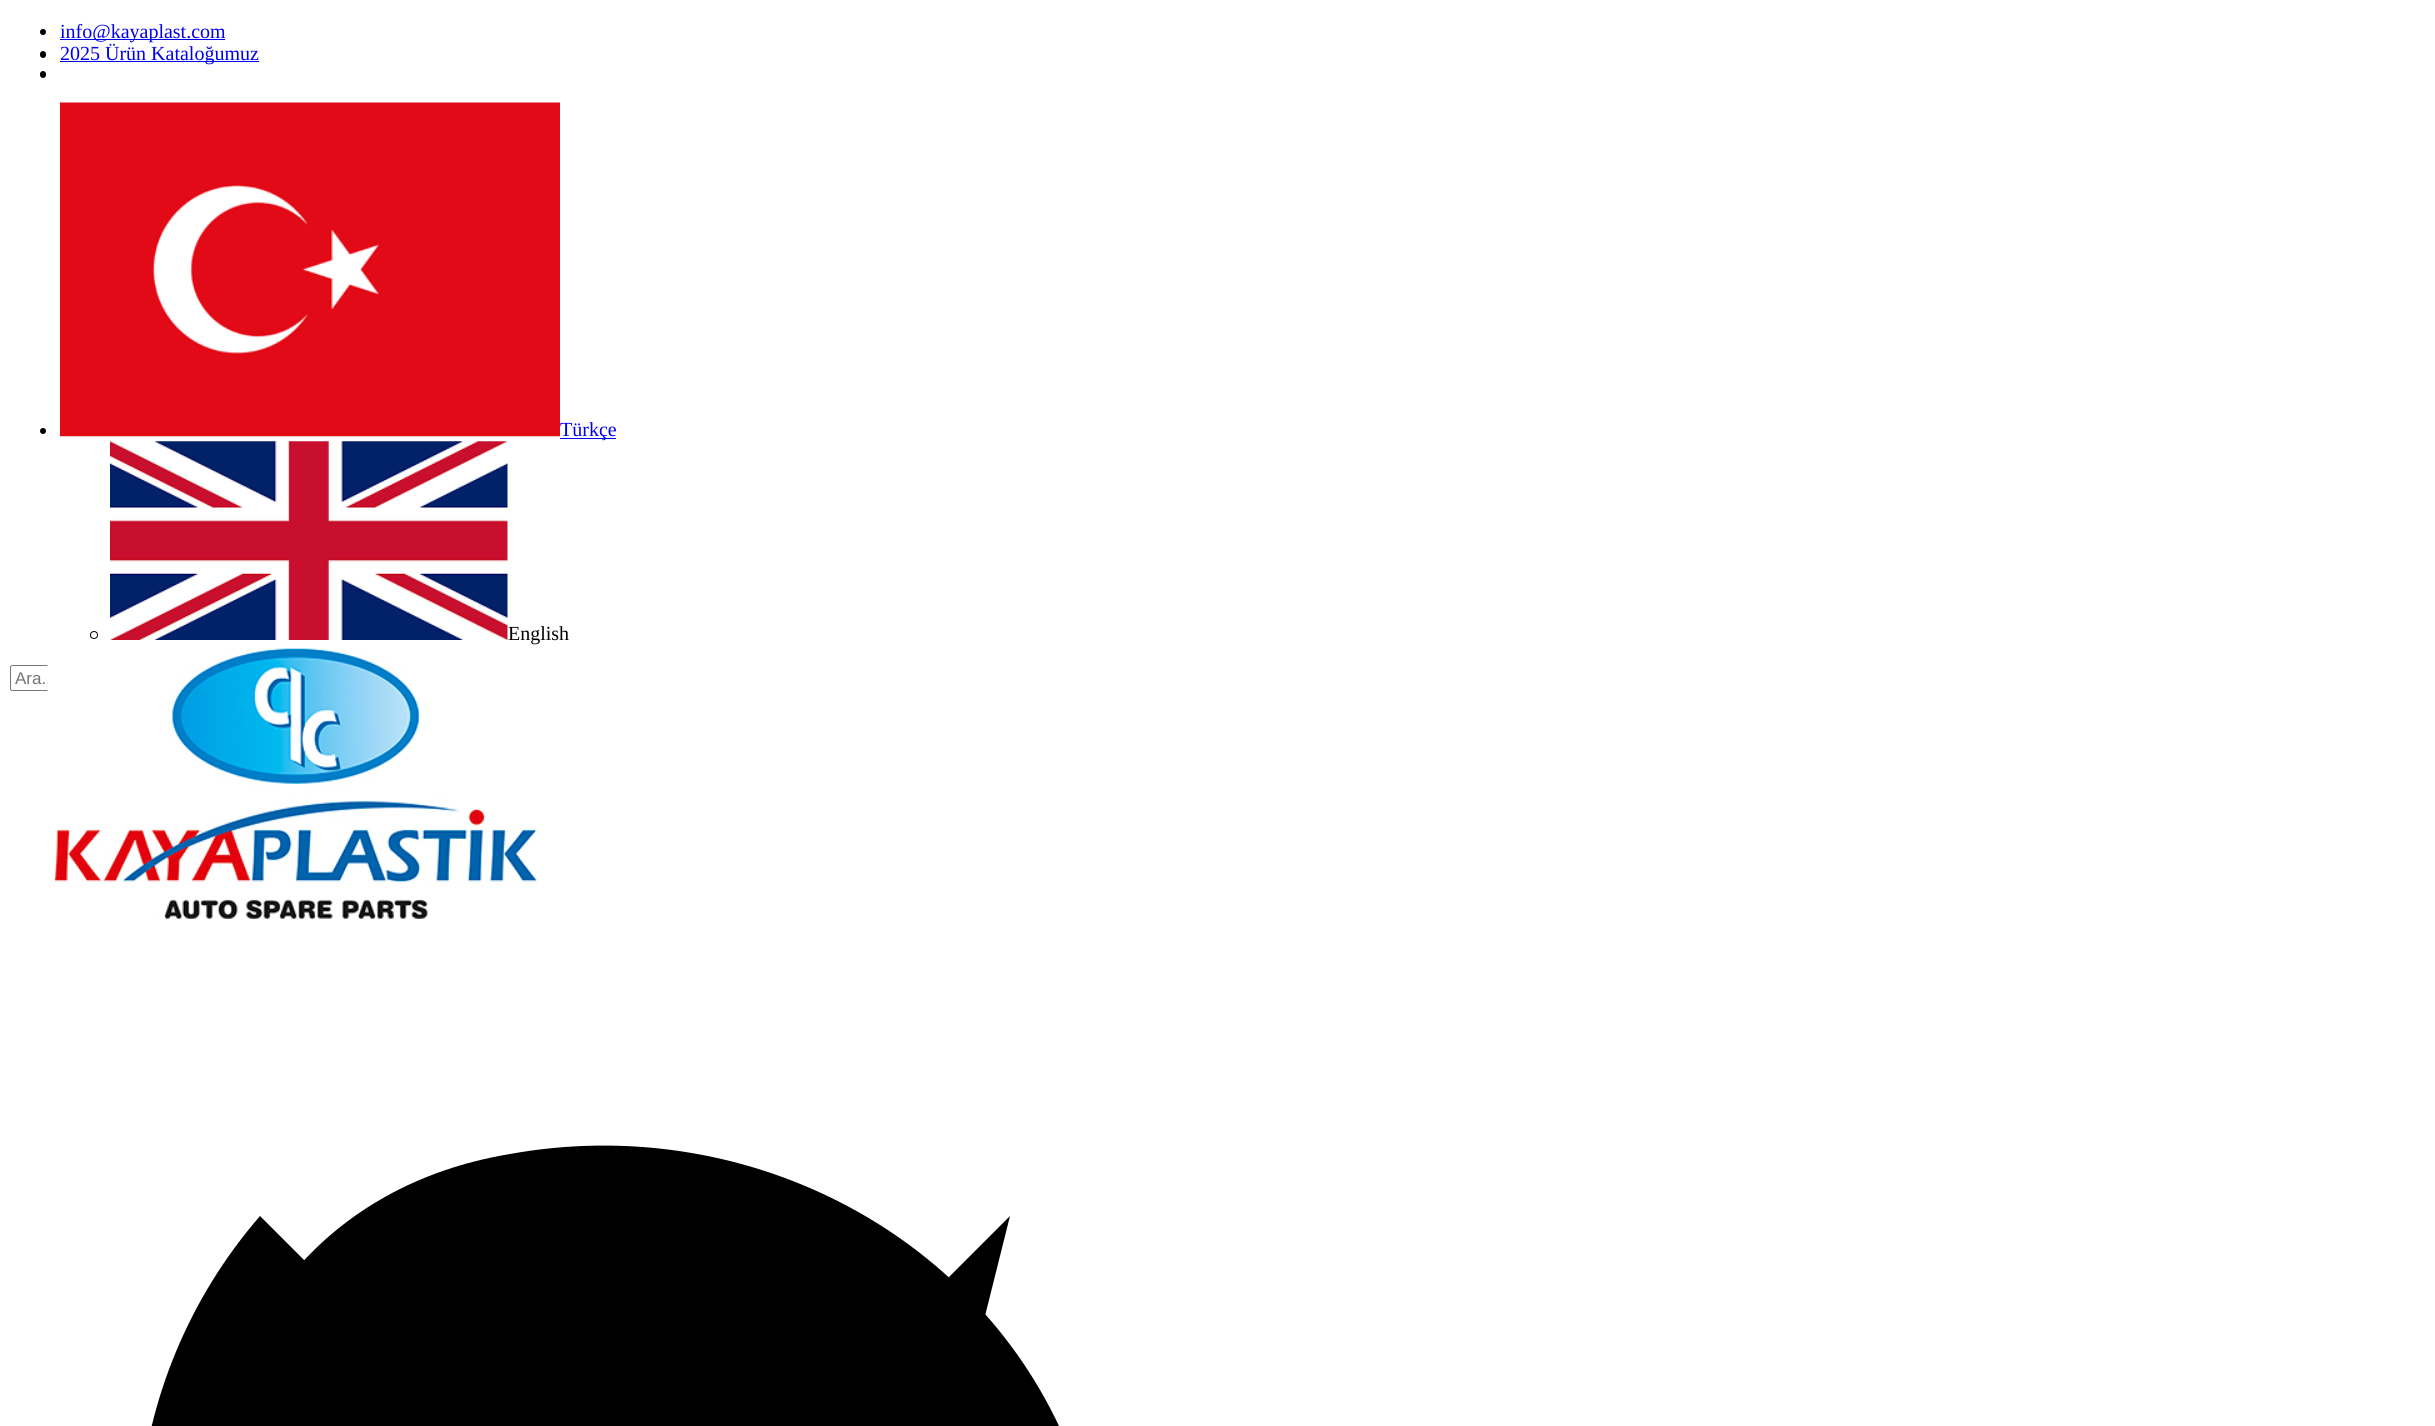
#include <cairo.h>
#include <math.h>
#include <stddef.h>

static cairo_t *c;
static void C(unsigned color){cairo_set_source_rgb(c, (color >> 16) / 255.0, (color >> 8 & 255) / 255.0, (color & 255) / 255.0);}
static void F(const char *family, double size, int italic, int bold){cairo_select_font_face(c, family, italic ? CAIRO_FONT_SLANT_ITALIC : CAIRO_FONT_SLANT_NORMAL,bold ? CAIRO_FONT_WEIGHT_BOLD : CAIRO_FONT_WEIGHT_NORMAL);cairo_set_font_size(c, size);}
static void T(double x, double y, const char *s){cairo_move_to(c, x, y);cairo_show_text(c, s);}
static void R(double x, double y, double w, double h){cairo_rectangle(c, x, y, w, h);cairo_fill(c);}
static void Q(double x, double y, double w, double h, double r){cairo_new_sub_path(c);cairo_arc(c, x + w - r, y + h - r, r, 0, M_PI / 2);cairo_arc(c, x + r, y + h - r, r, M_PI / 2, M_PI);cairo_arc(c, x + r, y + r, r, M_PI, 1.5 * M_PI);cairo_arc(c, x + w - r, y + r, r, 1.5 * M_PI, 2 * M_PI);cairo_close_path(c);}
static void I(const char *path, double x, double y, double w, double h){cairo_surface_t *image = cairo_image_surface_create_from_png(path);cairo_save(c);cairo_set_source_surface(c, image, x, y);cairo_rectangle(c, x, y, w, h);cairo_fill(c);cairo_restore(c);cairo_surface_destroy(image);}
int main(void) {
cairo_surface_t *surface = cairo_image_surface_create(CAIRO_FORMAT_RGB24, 2435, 1426);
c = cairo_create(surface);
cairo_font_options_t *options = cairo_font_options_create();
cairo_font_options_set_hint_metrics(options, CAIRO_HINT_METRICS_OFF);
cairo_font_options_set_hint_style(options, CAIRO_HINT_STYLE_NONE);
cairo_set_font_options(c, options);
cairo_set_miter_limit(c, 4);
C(0xffffff);
cairo_paint(c);
C(0x000000);
cairo_arc(c,43,32,3,0,2 * M_PI);
cairo_fill(c);
C(0x0000ee);
R(60,39,165,1);
F("Liberation Serif",20,0,0);
T(60,38,"info@kayaplast.com");
C(0x000000);
Q(40,51,6,7,3);
cairo_fill(c);
C(0x0000ee);
R(60,61,199,1);
T(60,60,"2025 Ürün Kataloğumuz");
C(0x000000);
Q(40,71,6,7,3);
cairo_fill(c);
cairo_arc(c,43,431,3,0,2 * M_PI);
cairo_fill(c);
I("1.png",60,102,500,335);
C(0x0000ee);
R(560,438,56,1);
T(560,436,"Türkçe");
cairo_new_path(c);
cairo_arc(c,94,635,3.5,0,2 * M_PI);
C(0x000000);
cairo_set_line_width(c,1);
cairo_stroke(c);
I("2.png",110,441,398,199);
T(508,640,"English");
Q(10.5,665.5,230,25,2);
C(0x767676);
cairo_stroke(c);
F("Liberation Sans",17,0,0);
C(0x757575);
T(15,684,"Ara..");
I("3.png",47,648,490,271);
C(0x000000);
cairo_new_path(c);
cairo_move_to(c,385,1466);
cairo_line_to(c,885,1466);
cairo_curve_to(c,1135,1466,1135,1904,760,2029);
cairo_curve_to(c,548,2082,326,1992,212,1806);
cairo_curve_to(c,97,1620,117,1381,260,1216);
cairo_line_to(c,1010,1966);
cairo_fill(c);
cairo_new_path(c);
cairo_move_to(c,885,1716);
cairo_line_to(c,385,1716);
cairo_curve_to(c,135,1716,135,1216,510,1154);
cairo_curve_to(c,742,1112,973,1230,1064,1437);
cairo_curve_to(c,1155,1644,1082,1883,888,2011);
cairo_curve_to(c,693,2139,432,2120,260,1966);
cairo_line_to(c,1010,1216);
cairo_fill(c);
cairo_surface_write_to_png(surface, "o.png");
cairo_font_options_destroy(options);
cairo_destroy(c);
cairo_surface_destroy(surface);
return 0;
}
